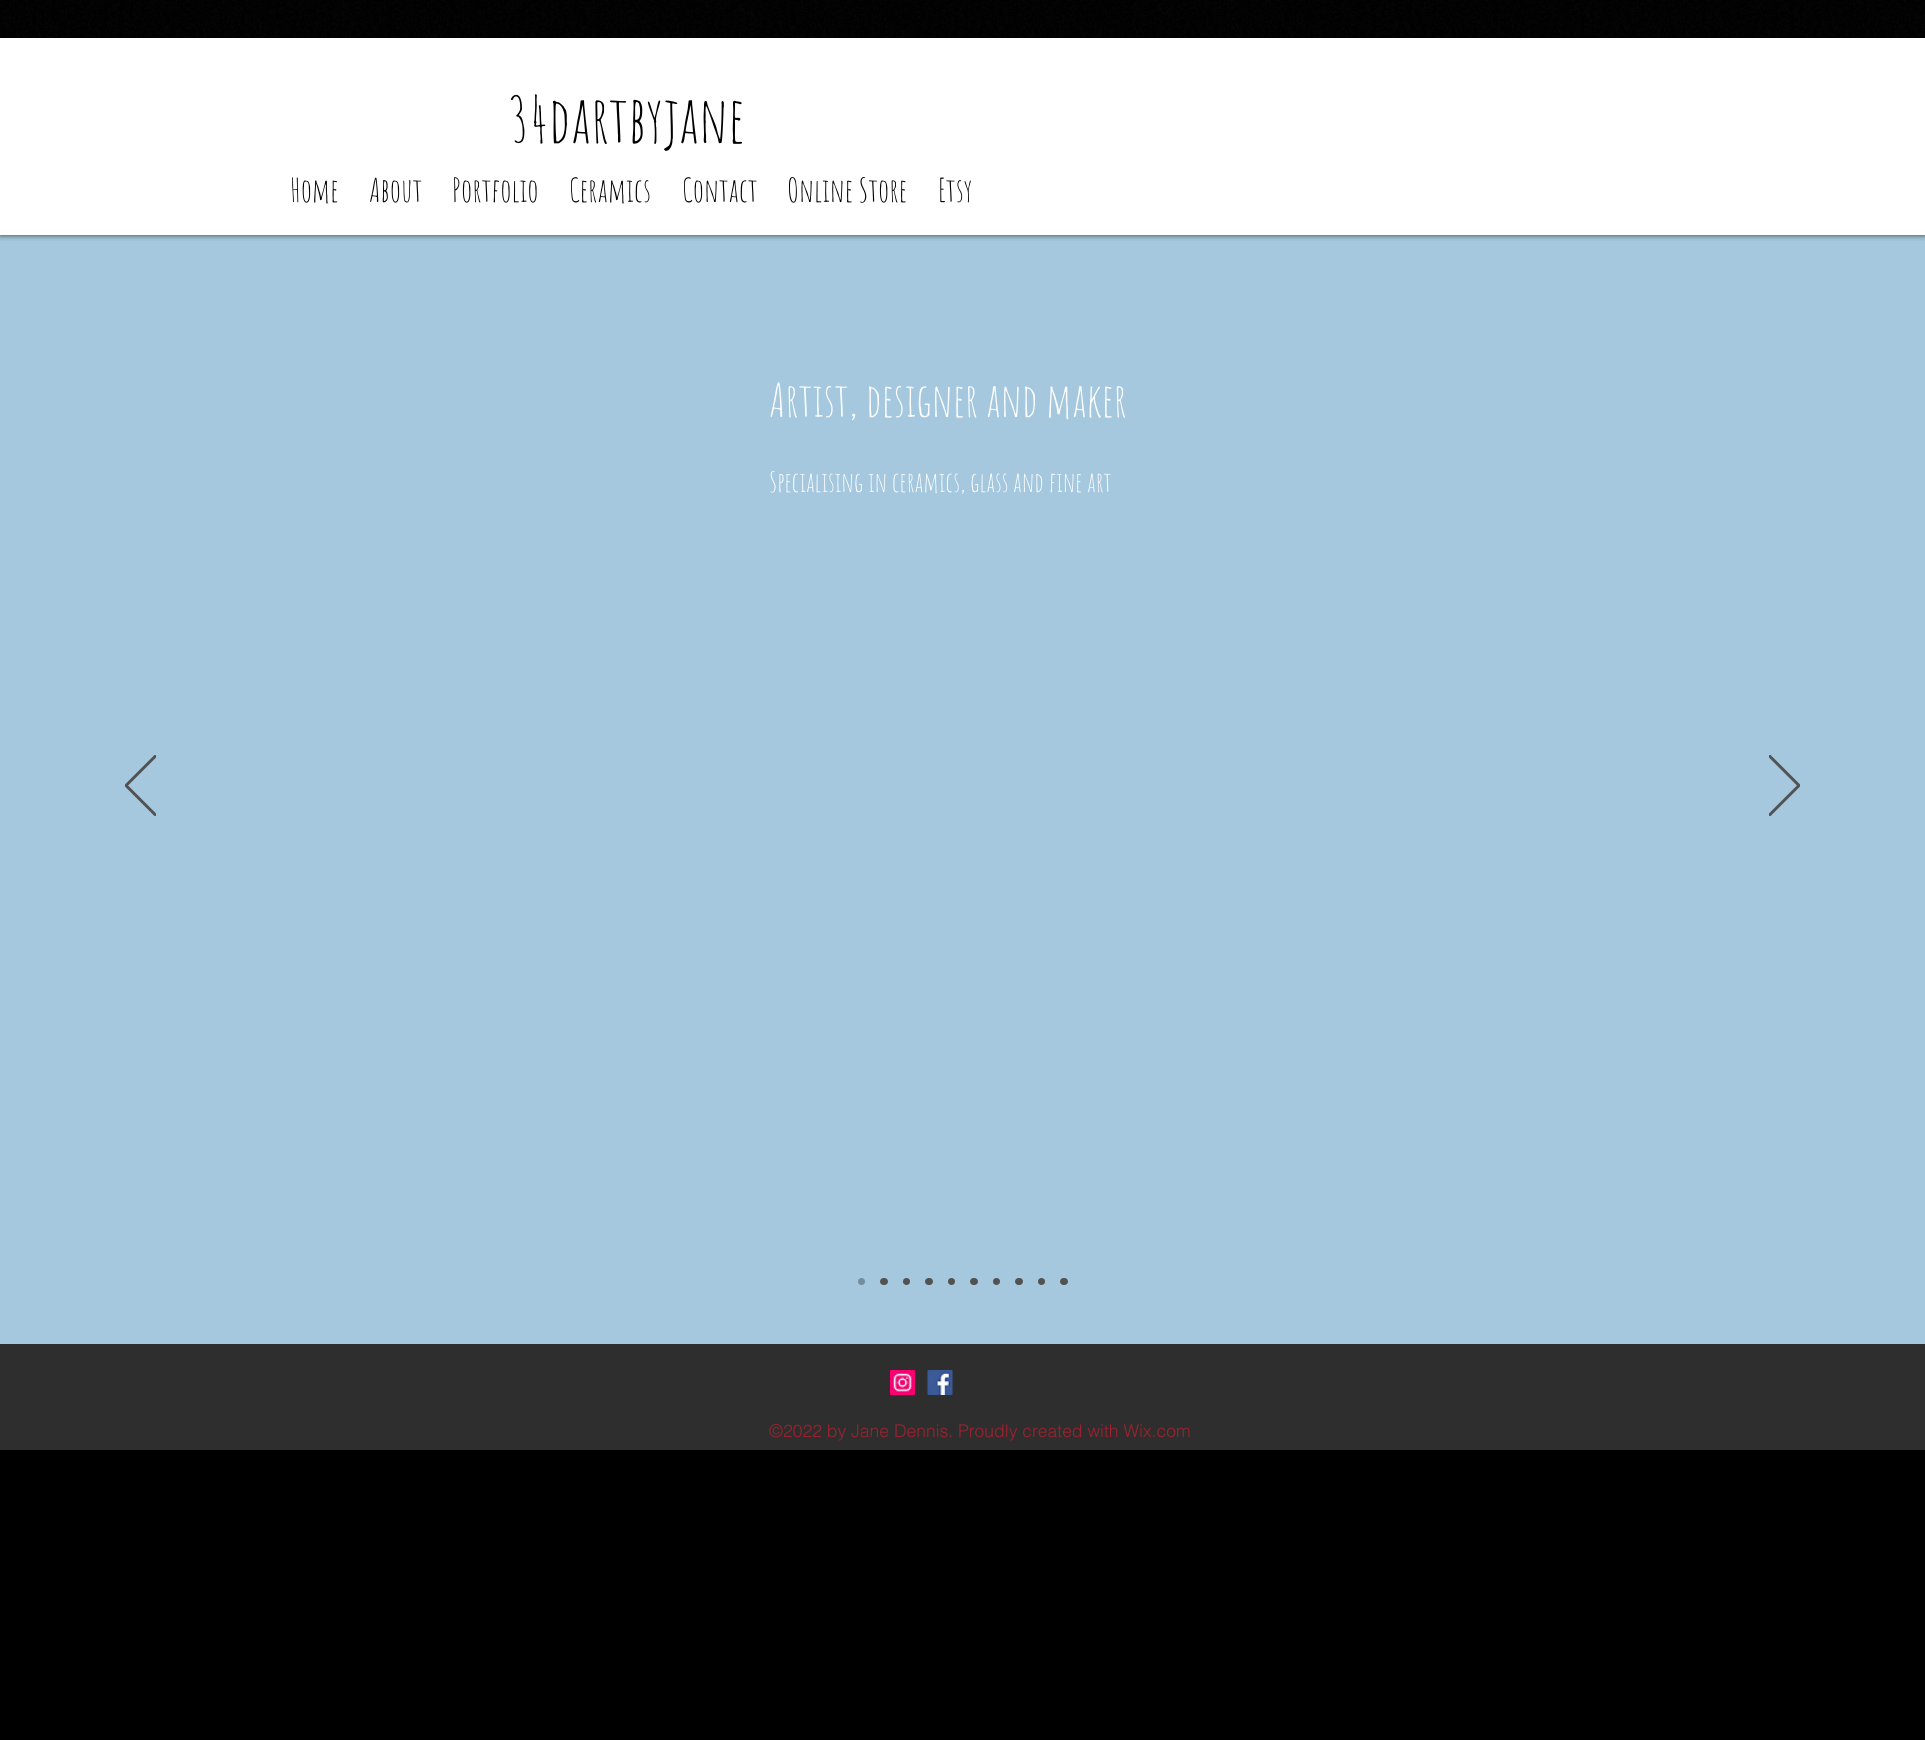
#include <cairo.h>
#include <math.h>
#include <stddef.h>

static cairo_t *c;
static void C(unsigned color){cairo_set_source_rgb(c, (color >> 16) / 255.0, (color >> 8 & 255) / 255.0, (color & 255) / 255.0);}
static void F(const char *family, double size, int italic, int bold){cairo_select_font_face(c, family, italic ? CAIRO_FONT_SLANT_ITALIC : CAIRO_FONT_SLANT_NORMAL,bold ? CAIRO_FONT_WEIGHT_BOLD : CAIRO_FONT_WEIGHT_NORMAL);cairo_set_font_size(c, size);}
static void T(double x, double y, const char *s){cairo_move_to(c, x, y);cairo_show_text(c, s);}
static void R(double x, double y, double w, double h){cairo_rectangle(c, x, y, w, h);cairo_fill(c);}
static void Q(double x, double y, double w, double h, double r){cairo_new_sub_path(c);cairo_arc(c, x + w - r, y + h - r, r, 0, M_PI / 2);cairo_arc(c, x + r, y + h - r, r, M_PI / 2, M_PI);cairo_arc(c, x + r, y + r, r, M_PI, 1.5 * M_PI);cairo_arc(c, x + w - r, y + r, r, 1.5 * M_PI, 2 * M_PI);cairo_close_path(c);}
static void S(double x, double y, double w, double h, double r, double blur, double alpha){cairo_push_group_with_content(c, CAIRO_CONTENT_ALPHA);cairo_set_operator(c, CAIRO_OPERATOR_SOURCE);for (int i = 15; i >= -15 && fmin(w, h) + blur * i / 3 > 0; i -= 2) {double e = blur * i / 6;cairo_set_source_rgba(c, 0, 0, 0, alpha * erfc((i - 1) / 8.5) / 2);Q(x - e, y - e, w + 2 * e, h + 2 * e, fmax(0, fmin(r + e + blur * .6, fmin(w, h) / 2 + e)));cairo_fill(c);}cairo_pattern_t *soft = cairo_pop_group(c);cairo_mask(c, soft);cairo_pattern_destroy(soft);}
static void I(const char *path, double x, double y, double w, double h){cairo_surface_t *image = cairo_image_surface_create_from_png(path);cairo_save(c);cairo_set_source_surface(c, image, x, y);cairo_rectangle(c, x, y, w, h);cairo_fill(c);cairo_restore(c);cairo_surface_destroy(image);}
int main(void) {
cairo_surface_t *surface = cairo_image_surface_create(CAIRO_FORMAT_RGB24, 1925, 1740);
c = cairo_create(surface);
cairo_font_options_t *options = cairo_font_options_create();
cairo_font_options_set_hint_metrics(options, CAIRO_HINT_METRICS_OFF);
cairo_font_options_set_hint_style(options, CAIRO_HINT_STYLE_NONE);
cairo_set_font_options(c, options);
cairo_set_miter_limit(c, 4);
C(0x000000);
cairo_paint(c);
C(0xa5c8de);
R(0,235,1925,1109);
cairo_save(c);
cairo_rectangle(c,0,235,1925,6);
cairo_clip(c);
C(0x000000);
S(0,0,1925,235,0,3,.7);
cairo_restore(c);
I("1.png",0,0,1925,38);
C(0xffffff);
R(0,38,1925,197);
F("Amatic SC",64,0,0);
C(0x000000);
T(508,143,"34dartbyjane");
F("Amatic SC",32.5,0,0);
T(290,202,"Home");
T(369,202,"About");
T(452,202,"Portfolio");
T(569,202,"Ceramics");
T(682,202,"Contact");
T(787,202,"Online Store");
T(938,202,"Etsy");
cairo_save(c);
cairo_rectangle(c,125,755,31,61);
cairo_clip(c);
cairo_new_path(c);
cairo_move_to(c,155,815.5);
cairo_line_to(c,125,785.5);
cairo_line_to(c,155,755.5);
cairo_line_to(c,156,756.5);
cairo_line_to(c,127,785.5);
cairo_line_to(c,156,814.5);
cairo_close_path(c);
C(0x525252);
cairo_set_line_width(c,1.5);
cairo_stroke(c);
cairo_restore(c);
cairo_save(c);
cairo_rectangle(c,1769,755,31,61);
cairo_clip(c);
cairo_new_path(c);
cairo_move_to(c,1770,815.5);
cairo_line_to(c,1800,785.5);
cairo_line_to(c,1770,755.5);
cairo_line_to(c,1769,756.5);
cairo_line_to(c,1798,785.5);
cairo_line_to(c,1769,814.5);
cairo_close_path(c);
C(0x525252);
cairo_set_line_width(c,1.5);
cairo_stroke(c);
cairo_restore(c);
C(0x748c9b);
cairo_arc(c,861.5,1281.5,3.5,0,2 * M_PI);
cairo_fill(c);
C(0x525252);
Q(880,1278,8,7,3.5);
cairo_fill(c);
cairo_arc(c,906.5,1281.5,3.5,0,2 * M_PI);
cairo_fill(c);
Q(925,1278,8,7,3.5);
cairo_fill(c);
cairo_arc(c,951.5,1281.5,3.5,0,2 * M_PI);
cairo_fill(c);
Q(970,1278,8,7,3.5);
cairo_fill(c);
cairo_arc(c,996.5,1281.5,3.5,0,2 * M_PI);
cairo_fill(c);
Q(1015,1278,8,7,3.5);
cairo_fill(c);
cairo_arc(c,1041.5,1281.5,3.5,0,2 * M_PI);
cairo_fill(c);
Q(1060,1278,8,7,3.5);
cairo_fill(c);
F("Amatic SC",46.25,0,0);
C(0xffffff);
T(769,417,"Artist, designer and maker");
F("Amatic SC",27.5,0,0);
T(769,492,"Specialising in ceramics, glass and fine art");
C(0x2f2e2e);
R(0,1344,1925,106);
I("2.png",890,1370,25,25);
I("3.png",927,1370,26,25);
F("helvetica Light",17.5,0,0);
C(0x9d222f);
T(769,1437,"©2022 by Jane Dennis. Proudly created with Wix.com");
cairo_surface_write_to_png(surface, "o.png");
cairo_font_options_destroy(options);
cairo_destroy(c);
cairo_surface_destroy(surface);
return 0;
}
